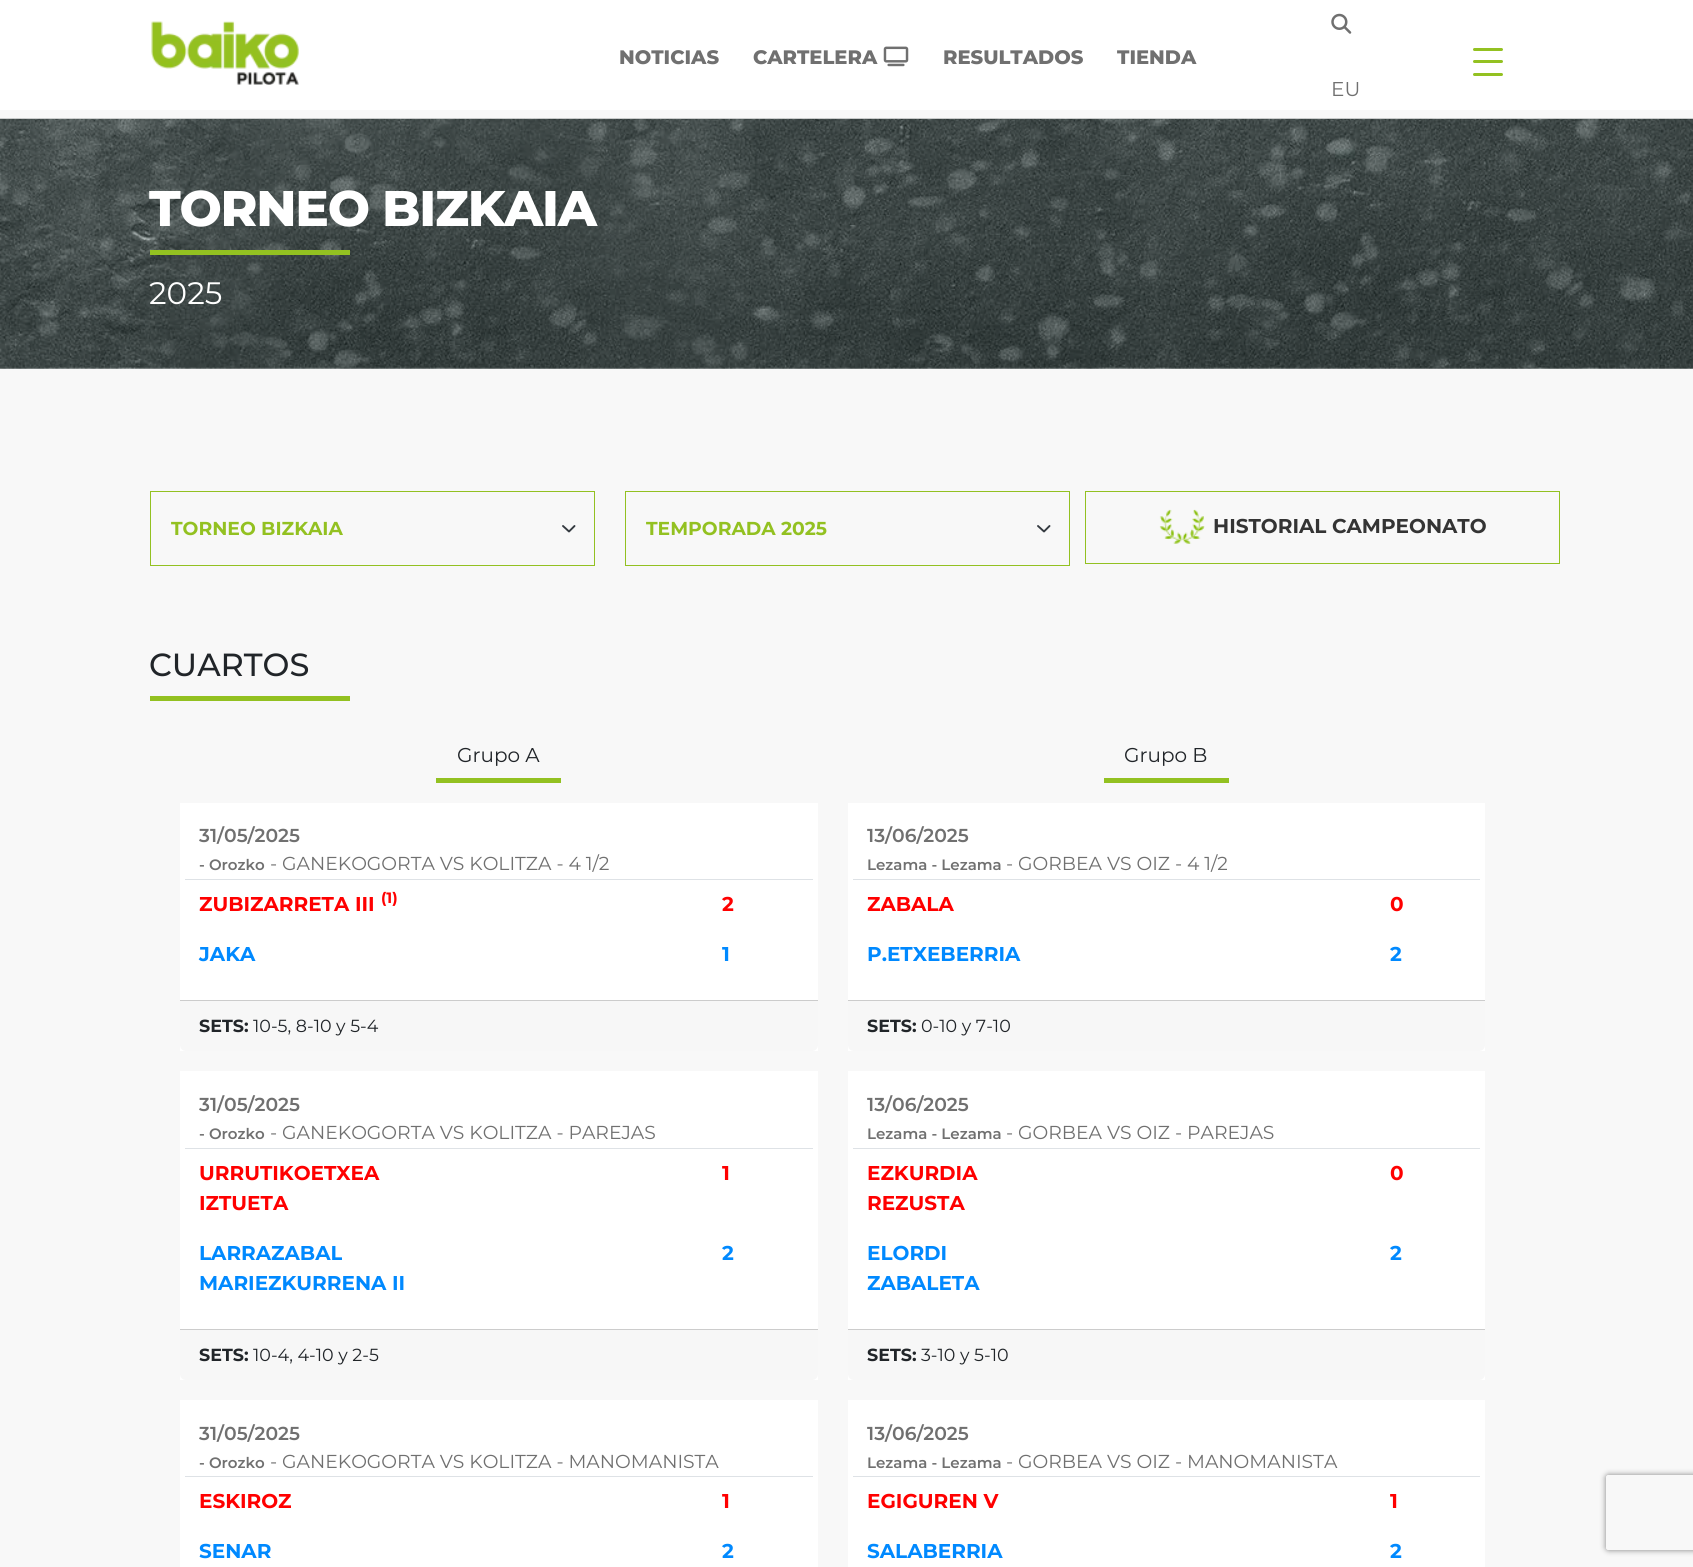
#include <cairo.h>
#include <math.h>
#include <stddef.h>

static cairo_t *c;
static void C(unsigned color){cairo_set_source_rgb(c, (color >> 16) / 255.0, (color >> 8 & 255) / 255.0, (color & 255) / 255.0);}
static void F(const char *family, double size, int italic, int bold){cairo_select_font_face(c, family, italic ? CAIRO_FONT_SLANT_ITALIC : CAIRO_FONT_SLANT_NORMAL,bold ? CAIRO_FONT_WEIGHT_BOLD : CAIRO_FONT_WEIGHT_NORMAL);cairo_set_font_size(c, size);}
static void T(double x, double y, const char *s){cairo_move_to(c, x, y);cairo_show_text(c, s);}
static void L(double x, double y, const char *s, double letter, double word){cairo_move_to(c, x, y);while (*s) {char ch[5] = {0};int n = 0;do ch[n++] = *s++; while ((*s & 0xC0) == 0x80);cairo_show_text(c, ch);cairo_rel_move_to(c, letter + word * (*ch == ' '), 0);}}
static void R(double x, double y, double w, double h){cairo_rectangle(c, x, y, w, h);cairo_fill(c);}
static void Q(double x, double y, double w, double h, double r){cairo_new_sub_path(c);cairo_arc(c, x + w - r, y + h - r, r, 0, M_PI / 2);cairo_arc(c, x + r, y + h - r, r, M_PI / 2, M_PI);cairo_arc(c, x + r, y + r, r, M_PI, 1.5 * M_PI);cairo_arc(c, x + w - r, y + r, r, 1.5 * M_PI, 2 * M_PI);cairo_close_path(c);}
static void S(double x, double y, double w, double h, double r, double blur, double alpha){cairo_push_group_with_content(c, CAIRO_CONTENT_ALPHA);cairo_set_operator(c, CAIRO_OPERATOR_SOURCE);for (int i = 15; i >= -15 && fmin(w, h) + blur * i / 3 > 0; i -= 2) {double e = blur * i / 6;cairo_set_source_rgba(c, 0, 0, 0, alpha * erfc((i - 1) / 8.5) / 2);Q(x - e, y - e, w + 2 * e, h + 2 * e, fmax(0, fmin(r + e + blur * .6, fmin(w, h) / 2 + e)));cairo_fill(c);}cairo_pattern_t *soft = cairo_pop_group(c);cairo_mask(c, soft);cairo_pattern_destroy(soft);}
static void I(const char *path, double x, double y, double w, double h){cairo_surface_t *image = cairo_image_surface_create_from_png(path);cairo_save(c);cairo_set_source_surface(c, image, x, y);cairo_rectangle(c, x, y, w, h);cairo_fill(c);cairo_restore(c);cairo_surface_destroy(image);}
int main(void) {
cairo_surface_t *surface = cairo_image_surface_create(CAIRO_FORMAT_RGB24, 1693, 1567);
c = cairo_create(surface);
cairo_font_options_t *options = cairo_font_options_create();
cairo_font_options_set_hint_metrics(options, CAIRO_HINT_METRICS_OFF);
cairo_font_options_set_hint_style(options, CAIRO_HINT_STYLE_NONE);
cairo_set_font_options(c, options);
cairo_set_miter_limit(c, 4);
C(0xf8f8f8);
cairo_paint(c);
C(0xffffff);
R(0,0,1693,110);
I("1.png",151,21,148,64);
F("Montserrat ExtraBold",19.5,0,0);
C(0x707070);
T(619,64,"NOTICIAS");
T(753,64,"CARTELERA");
I("2.png",883,46,26,21);
T(943,64,"RESULTADOS");
T(1117,64,"TIENDA");
C(0x93c121);
Q(1473,48,30,3,1.5);
cairo_fill(c);
Q(1473,60,30,3,1.5);
cairo_fill(c);
Q(1473,73,30,3,1.5);
cairo_fill(c);
I("3.png",1331,13,21,21);
F("Montserrat",20,0,0);
C(0x707070);
T(1331,96,"EU");
I("4.png",0,118,1693,251);
F("Montserrat ExtraBold",50,0,0);
C(0xffffff);
L(149,226,"TORNEO BIZKAIA",-1.25,0);
C(0x93c121);
R(150,250,200,5);
F("Montserrat",31,0,0);
C(0xffffff);
T(149,304,"2025");
cairo_new_path(c);
cairo_move_to(c,563,526);
cairo_line_to(c,569,531.5);
cairo_line_to(c,574.5,526);
C(0x343a40);
cairo_set_line_width(c,1.9);
cairo_set_line_cap(c,CAIRO_LINE_CAP_ROUND);
cairo_set_line_join(c,CAIRO_LINE_JOIN_ROUND);
cairo_stroke(c);
cairo_rectangle(c,150.5,491.5,444,74);
C(0x93c121);
cairo_set_line_width(c,1);
cairo_set_line_cap(c,CAIRO_LINE_CAP_BUTT);
cairo_set_line_join(c,CAIRO_LINE_JOIN_MITER);
cairo_stroke(c);
cairo_save(c);
cairo_rectangle(c,171,515,378,28);
cairo_clip(c);
F("Montserrat",18.75,0,1);
T(171,535,"TORNEO BIZKAIA");
cairo_restore(c);
cairo_new_path(c);
cairo_move_to(c,1038,526);
cairo_line_to(c,1044,531.5);
cairo_line_to(c,1049.5,526);
C(0x343a40);
cairo_set_line_width(c,1.9);
cairo_set_line_cap(c,CAIRO_LINE_CAP_ROUND);
cairo_set_line_join(c,CAIRO_LINE_JOIN_ROUND);
cairo_stroke(c);
cairo_rectangle(c,625.5,491.5,444,74);
C(0x93c121);
cairo_set_line_width(c,1);
cairo_set_line_cap(c,CAIRO_LINE_CAP_BUTT);
cairo_set_line_join(c,CAIRO_LINE_JOIN_MITER);
cairo_stroke(c);
cairo_save(c);
cairo_rectangle(c,646,515,378,28);
cairo_clip(c);
F("Montserrat",18.75,0,1);
T(646,535,"TEMPORADA 2025");
cairo_restore(c);
cairo_rectangle(c,1085.5,491.5,474,72);
cairo_stroke(c);
I("5.png",1159,509,46,35);
F("Montserrat",20,0,1);
C(0x343434);
T(1213,533,"HISTORIAL CAMPEONATO");
F("Montserrat Medium",32,0,0);
C(0x212529);
T(149,676,"CUARTOS");
C(0x93c121);
R(150,696,200,5);
F("Montserrat",20,0,0);
C(0x212529);
T(457,762,"Grupo A");
C(0x93c121);
R(436,778,125,5);
C(0xffffff);
R(180,803,638,248);
C(0xdee2e6);
R(185,879,628,1);
F("Montserrat SemiBold",18.75,0,0);
C(0x707070);
T(199,842,"31/05/2025");
F("Montserrat SemiBold",15,0,0);
T(199,870,"- Orozko");
F("Montserrat",18.75,0,0);
T(270,870,"- GANEKOGORTA VS KOLITZA - 4 1/2");
F("Montserrat",20,0,1);
C(0xff0000);
T(199,911,"ZUBIZARRETA III");
F("Montserrat",15,0,1);
T(381,903,"(1)");
F("Montserrat",20,0,1);
T(722,911,"2");
C(0x0089ff);
T(199,961,"JAKA");
T(722,961,"1");
C(0xf7f7f7);
cairo_new_path(c);
cairo_move_to(c,180,1000);
cairo_line_to(c,818,1000);
cairo_line_to(c,818,1045);
cairo_curve_to(c,818,1048.5,815.5,1051,812,1051);
cairo_line_to(c,186,1051);
cairo_curve_to(c,182.5,1051,180,1048.5,180,1045);
cairo_close_path(c);
cairo_fill(c);
C(0xcccccc);
R(180,1000,638,1);
F("Montserrat",17.5,0,1);
C(0x212529);
T(199,1032,"SETS:");
F("Montserrat",17.5,0,0);
T(253,1032,"10-5, 8-10 y 5-4");
C(0xffffff);
R(180,1071,638,309);
C(0xdee2e6);
R(185,1148,628,1);
F("Montserrat SemiBold",18.75,0,0);
C(0x707070);
T(199,1111,"31/05/2025");
F("Montserrat SemiBold",15,0,0);
T(199,1139,"- Orozko");
F("Montserrat",18.75,0,0);
T(270,1139,"- GANEKOGORTA VS KOLITZA - PAREJAS");
F("Montserrat",20,0,1);
C(0xff0000);
T(199,1180,"URRUTIKOETXEA");
T(199,1210,"IZTUETA");
T(722,1180,"1");
C(0x0089ff);
T(199,1260,"LARRAZABAL");
T(199,1290,"MARIEZKURRENA II");
T(722,1260,"2");
C(0xf7f7f7);
cairo_new_path(c);
cairo_move_to(c,180,1329);
cairo_line_to(c,818,1329);
cairo_line_to(c,818,1374);
cairo_curve_to(c,818,1377.5,815.5,1380,812,1380);
cairo_line_to(c,186,1380);
cairo_curve_to(c,182.5,1380,180,1377.5,180,1374);
cairo_close_path(c);
cairo_fill(c);
C(0xcccccc);
R(180,1329,638,1);
F("Montserrat",17.5,0,1);
C(0x212529);
T(199,1361,"SETS:");
F("Montserrat",17.5,0,0);
T(253,1361,"10-4, 4-10 y 2-5");
C(0xffffff);
R(180,1400,638,167);
C(0xdee2e6);
R(185,1476,628,1);
F("Montserrat SemiBold",18.75,0,0);
C(0x707070);
T(199,1440,"31/05/2025");
F("Montserrat SemiBold",15,0,0);
T(199,1468,"- Orozko");
F("Montserrat",18.75,0,0);
T(270,1468,"- GANEKOGORTA VS KOLITZA - MANOMANISTA");
F("Montserrat",20,0,1);
C(0xff0000);
T(199,1508,"ESKIROZ");
T(722,1508,"1");
C(0x0089ff);
T(199,1558,"SENAR");
T(722,1558,"2");
F("Montserrat",20,0,0);
C(0x212529);
T(1124,762,"Grupo B");
C(0x93c121);
R(1104,778,125,5);
C(0xffffff);
R(848,803,637,248);
C(0xdee2e6);
R(853,879,627,1);
F("Montserrat SemiBold",18.75,0,0);
C(0x707070);
T(867,842,"13/06/2025");
F("Montserrat SemiBold",15,0,0);
T(867,870,"Lezama - Lezama");
F("Montserrat",18.75,0,0);
T(1006,870,"- GORBEA VS OIZ - 4 1/2");
F("Montserrat",20,0,1);
C(0xff0000);
T(867,911,"ZABALA");
T(1390,911,"0");
C(0x0089ff);
T(867,961,"P.ETXEBERRIA");
T(1390,961,"2");
C(0xf7f7f7);
cairo_new_path(c);
cairo_move_to(c,848,1000);
cairo_line_to(c,1485,1000);
cairo_line_to(c,1485,1045);
cairo_curve_to(c,1485,1048.5,1482.5,1051,1479,1051);
cairo_line_to(c,854,1051);
cairo_curve_to(c,850.5,1051,848,1048.5,848,1045);
cairo_close_path(c);
cairo_fill(c);
C(0xcccccc);
R(848,1000,637,1);
F("Montserrat",17.5,0,1);
C(0x212529);
T(867,1032,"SETS:");
F("Montserrat",17.5,0,0);
T(921,1032,"0-10 y 7-10");
C(0xffffff);
R(848,1071,637,309);
C(0xdee2e6);
R(853,1148,627,1);
F("Montserrat SemiBold",18.75,0,0);
C(0x707070);
T(867,1111,"13/06/2025");
F("Montserrat SemiBold",15,0,0);
T(867,1139,"Lezama - Lezama");
F("Montserrat",18.75,0,0);
T(1006,1139,"- GORBEA VS OIZ - PAREJAS");
F("Montserrat",20,0,1);
C(0xff0000);
T(867,1180,"EZKURDIA");
T(867,1210,"REZUSTA");
T(1390,1180,"0");
C(0x0089ff);
T(867,1260,"ELORDI");
T(867,1290,"ZABALETA");
T(1390,1260,"2");
C(0xf7f7f7);
cairo_new_path(c);
cairo_move_to(c,848,1329);
cairo_line_to(c,1485,1329);
cairo_line_to(c,1485,1374);
cairo_curve_to(c,1485,1377.5,1482.5,1380,1479,1380);
cairo_line_to(c,854,1380);
cairo_curve_to(c,850.5,1380,848,1377.5,848,1374);
cairo_close_path(c);
cairo_fill(c);
C(0xcccccc);
R(848,1329,637,1);
F("Montserrat",17.5,0,1);
C(0x212529);
T(867,1361,"SETS:");
F("Montserrat",17.5,0,0);
T(921,1361,"3-10 y 5-10");
C(0xffffff);
R(848,1400,637,167);
C(0xdee2e6);
R(853,1476,627,1);
F("Montserrat SemiBold",18.75,0,0);
C(0x707070);
T(867,1440,"13/06/2025");
F("Montserrat SemiBold",15,0,0);
T(867,1468,"Lezama - Lezama");
F("Montserrat",18.75,0,0);
T(1006,1468,"- GORBEA VS OIZ - MANOMANISTA");
F("Montserrat",20,0,1);
C(0xff0000);
T(867,1508,"EGIGUREN V");
T(1390,1508,"1");
C(0x0089ff);
T(867,1558,"SALABERRIA");
T(1390,1558,"2");
cairo_save(c);
cairo_set_fill_rule(c,CAIRO_FILL_RULE_EVEN_ODD);
cairo_new_path(c);
cairo_move_to(c,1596,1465);
cairo_line_to(c,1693,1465);
cairo_line_to(c,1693,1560);
cairo_line_to(c,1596,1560);
cairo_close_path(c);
cairo_move_to(c,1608.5,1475);
cairo_line_to(c,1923.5,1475);
cairo_curve_to(c,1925,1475,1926,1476,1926,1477.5);
cairo_line_to(c,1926,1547.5);
cairo_curve_to(c,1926,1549,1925,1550,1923.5,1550);
cairo_line_to(c,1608.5,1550);
cairo_curve_to(c,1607,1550,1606,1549,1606,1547.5);
cairo_line_to(c,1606,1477.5);
cairo_curve_to(c,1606,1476,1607,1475,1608.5,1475);
cairo_close_path(c);
cairo_clip(c);
C(0x808080);
S(1606,1475,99,75,2.5,3,1);
cairo_restore(c);
cairo_surface_write_to_png(surface, "o.png");
cairo_font_options_destroy(options);
cairo_destroy(c);
cairo_surface_destroy(surface);
return 0;
}
